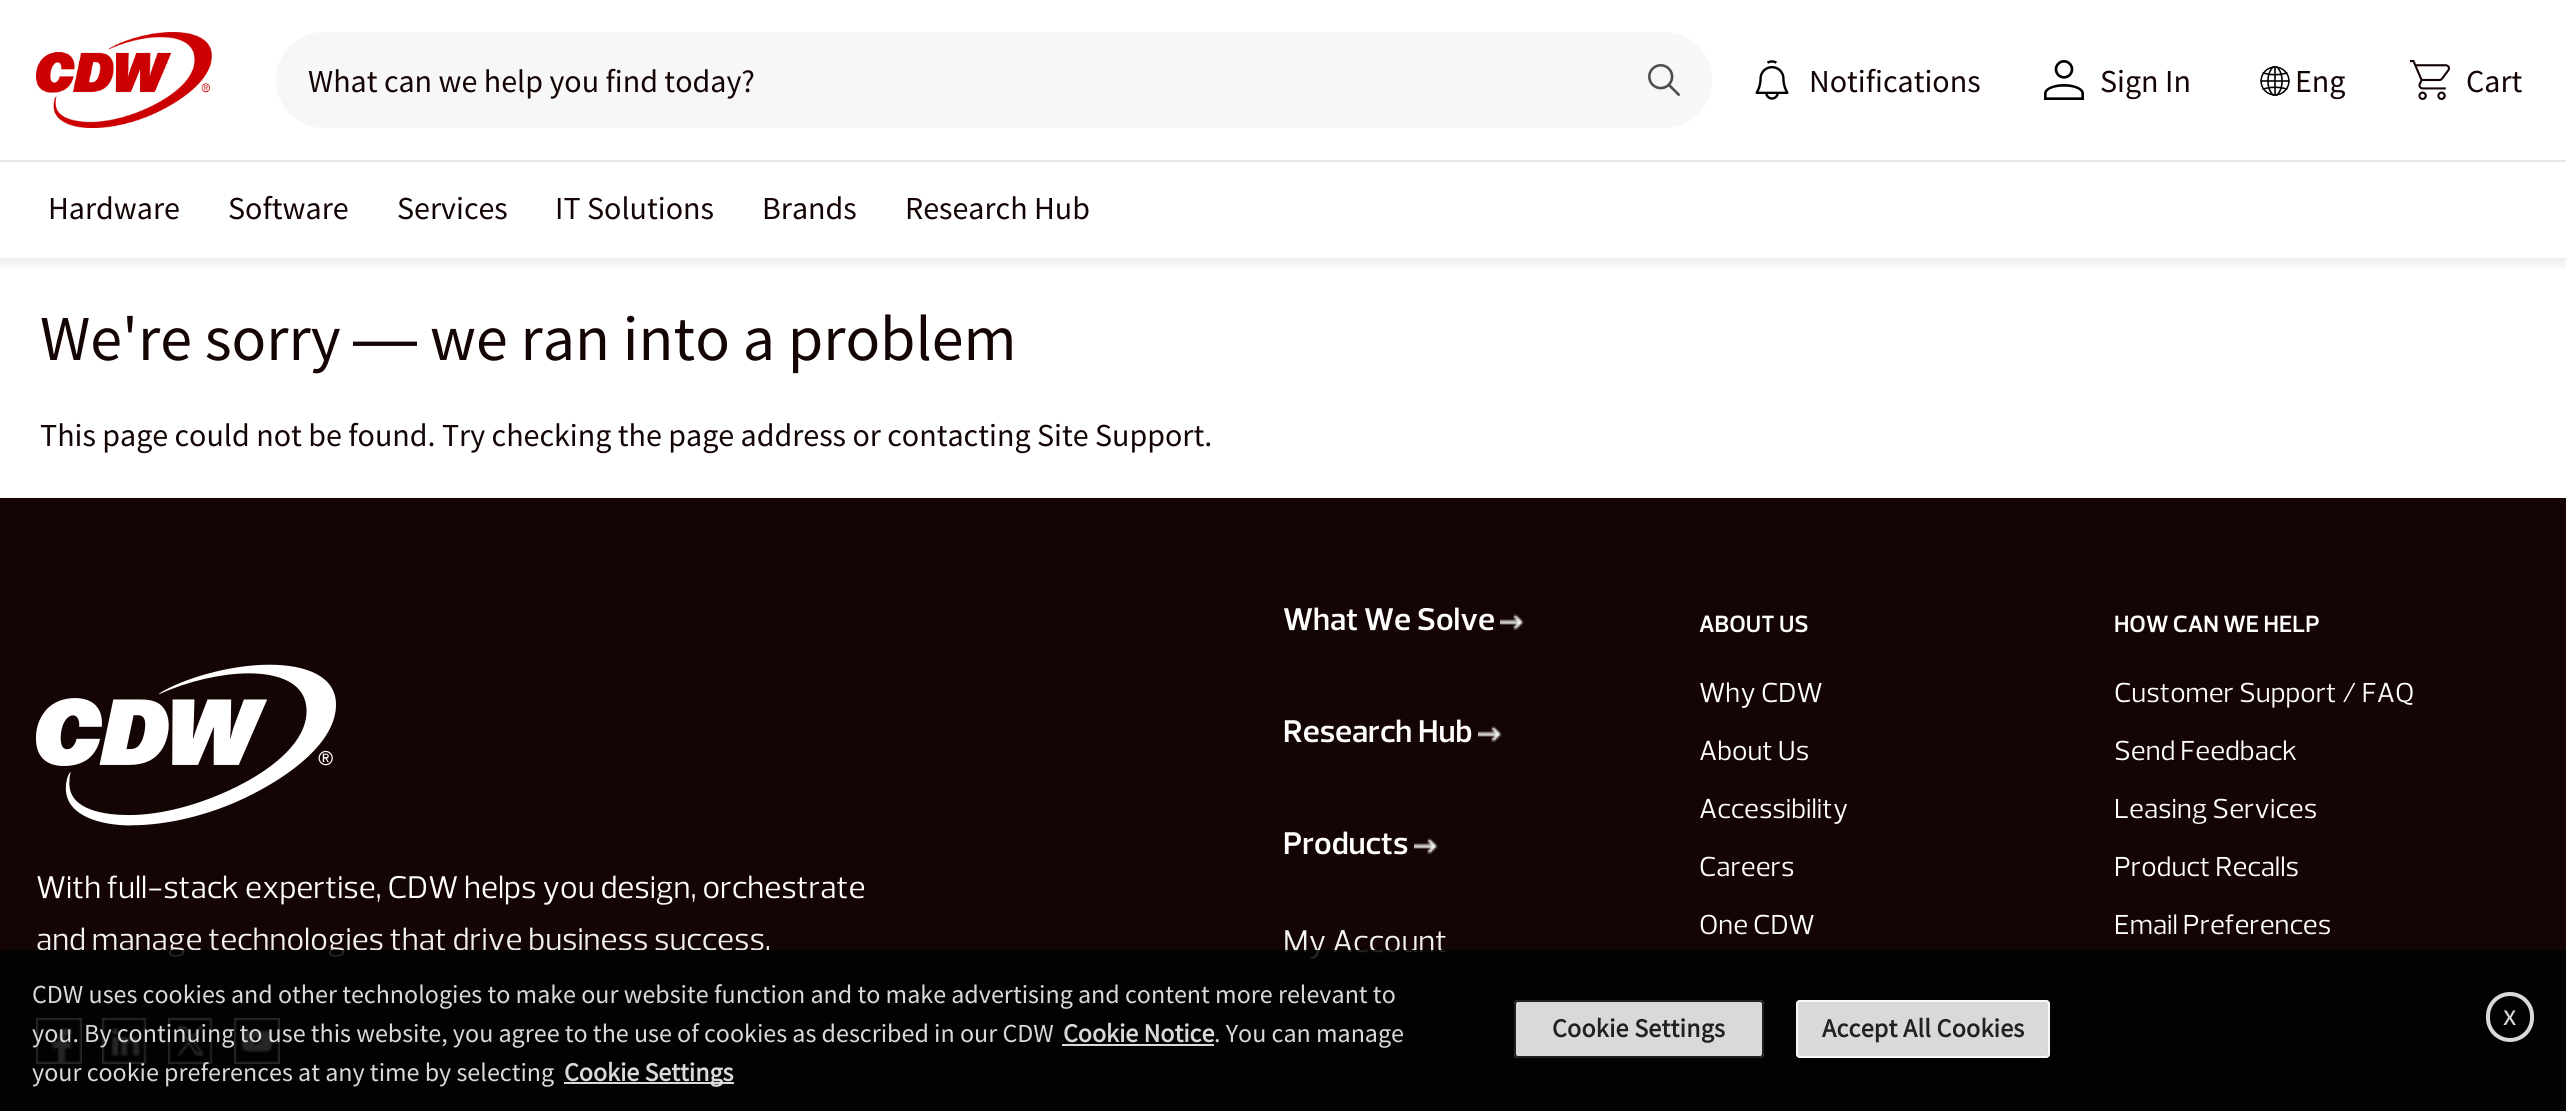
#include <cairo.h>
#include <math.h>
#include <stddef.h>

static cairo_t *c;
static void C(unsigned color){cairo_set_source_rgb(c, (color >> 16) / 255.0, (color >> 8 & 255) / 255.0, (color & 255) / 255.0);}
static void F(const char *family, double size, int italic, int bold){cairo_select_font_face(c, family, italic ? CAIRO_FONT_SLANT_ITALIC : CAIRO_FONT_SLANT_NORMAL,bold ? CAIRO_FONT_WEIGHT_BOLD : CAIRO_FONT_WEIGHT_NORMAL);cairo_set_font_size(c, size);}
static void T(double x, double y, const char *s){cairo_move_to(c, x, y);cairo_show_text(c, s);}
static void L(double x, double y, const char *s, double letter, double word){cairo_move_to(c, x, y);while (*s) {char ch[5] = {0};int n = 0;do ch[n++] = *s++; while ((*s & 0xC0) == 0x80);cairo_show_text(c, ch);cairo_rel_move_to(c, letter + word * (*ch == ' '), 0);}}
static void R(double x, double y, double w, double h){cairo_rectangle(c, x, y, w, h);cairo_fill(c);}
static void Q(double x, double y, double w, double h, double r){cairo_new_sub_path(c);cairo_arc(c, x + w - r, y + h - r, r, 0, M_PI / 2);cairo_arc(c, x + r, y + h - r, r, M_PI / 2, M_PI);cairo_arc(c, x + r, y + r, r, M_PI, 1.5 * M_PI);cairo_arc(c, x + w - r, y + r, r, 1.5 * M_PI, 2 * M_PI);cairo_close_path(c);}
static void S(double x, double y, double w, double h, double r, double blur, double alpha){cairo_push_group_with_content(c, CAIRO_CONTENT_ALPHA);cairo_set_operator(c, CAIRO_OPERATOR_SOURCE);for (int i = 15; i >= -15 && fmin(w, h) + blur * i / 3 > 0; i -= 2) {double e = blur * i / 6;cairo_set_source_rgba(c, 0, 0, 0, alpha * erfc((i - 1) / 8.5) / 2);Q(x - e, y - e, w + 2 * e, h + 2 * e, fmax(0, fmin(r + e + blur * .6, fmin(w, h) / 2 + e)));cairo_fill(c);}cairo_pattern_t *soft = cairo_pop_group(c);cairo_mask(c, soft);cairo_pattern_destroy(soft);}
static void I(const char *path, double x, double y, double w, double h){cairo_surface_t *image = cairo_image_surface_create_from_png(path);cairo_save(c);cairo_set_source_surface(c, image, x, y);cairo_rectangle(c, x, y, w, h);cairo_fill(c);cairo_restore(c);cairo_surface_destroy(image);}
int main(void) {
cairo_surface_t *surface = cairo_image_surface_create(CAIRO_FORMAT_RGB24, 2566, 1111);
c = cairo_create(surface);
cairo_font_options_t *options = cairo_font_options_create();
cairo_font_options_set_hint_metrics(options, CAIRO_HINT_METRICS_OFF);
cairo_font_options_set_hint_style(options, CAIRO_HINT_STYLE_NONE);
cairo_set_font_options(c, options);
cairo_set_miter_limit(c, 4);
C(0xffffff);
cairo_paint(c);
cairo_save(c);
cairo_rectangle(c,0,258,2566,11);
cairo_clip(c);
C(0x000000);
S(0,4,2566,258,0,8,.1);
cairo_restore(c);
I("1.png",36,32,176,96);
C(0xf7f7f7);
Q(276,32,1436,96,48);
cairo_fill(c);
F("Source Sans Pro",32,0,0);
C(0x150404);
T(308,92,"What can we help you find today?");
I("2.png",1648,64,32,32);
I("3.png",1755,60,34,40);
T(1809,92,"Notifications");
I("4.png",2044,60,40,40);
T(2100,92,"Sign In");
I("5.png",2260,66,30,30);
T(2295,92,"Eng");
I("6.png",2410,60,40,40);
T(2466,92,"Cart");
C(0xe8e6e6);
R(0,160,2566,2);
C(0x150404);
T(48,219,"Hardware");
T(228,219,"Software");
T(397,219,"Services");
T(555,219,"IT Solutions");
T(762,219,"Brands");
T(905,219,"Research Hub");
F("Source Sans Pro",64,0,0);
T(40,360,"We're sorry");
F("Liberation Sans",64,0,0);
T(353,360,"—");
F("Source Sans Pro",64,0,0);
T(430,360,"we ran into a problem");
F("Source Sans Pro",32,0,0);
T(40,446,"This page could not be found. Try checking the page address or contacting Site Support.");
R(0,498,2566,613);
I("7.png",36,664,300,162);
F("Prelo",32,0,0);
C(0xffffff);
T(36,898,"With full-stack expertise, CDW helps you design, orchestrate");
T(36,950,"and manage technologies that drive business success.");
I("8.png",36,1018,46,46);
I("9.png",102,1018,45,46);
I("10.png",168,1018,46,46);
I("11.png",234,1018,46,46);
F("Prelo SemiBold",32,0,0);
T(1283,630,"What We Solve");
I("12.png",1500,614,24,16);
T(1283,742,"Research Hub");
I("12.png",1478,726,24,16);
T(1283,854,"Products");
I("12.png",1414,838,24,16);
F("Prelo",32,0,0);
T(1283,952,"My Account");
F("Prelo SemiBold",24,0,0);
T(1699,632,"ABOUT US");
F("Prelo",28,0,0);
T(1699,702,"Why CDW");
T(1699,760,"About Us");
T(1699,818,"Accessibility");
T(1699,876,"Careers");
T(1699,934,"One CDW");
F("Prelo SemiBold",24,0,0);
T(2114,632,"HOW CAN WE HELP");
F("Prelo",28,0,0);
T(2114,702,"Customer Support / FAQ");
T(2114,760,"Send Feedback");
T(2114,818,"Leasing Services");
T(2114,876,"Product Recalls");
T(2114,934,"Email Preferences");
cairo_save(c);
cairo_rectangle(c,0,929,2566,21);
cairo_clip(c);
C(0x000000);
S(0,950,2566,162,0,18,.17);
cairo_restore(c);
cairo_set_source_rgba(c,0,0,0,0.85);
R(0,950,2566,161);
F("Source Sans Pro",26.02,0,0);
C(0xd9d9d9);
T(32,1003,"CDW uses cookies and other technologies to make our website function and to make advertising and content more relevant to");
T(32,1042,"you. By continuing to use this website, you agree to the use of cookies as described in our CDW");
F("Source Sans Pro",26.02,0,1);
T(1063,1042,"Cookie Notice");
C(0xdcd9d9);
R(1062,1044,152,2);
F("Source Sans Pro",26.02,0,0);
C(0xd9d9d9);
T(1214,1042,". You can manage");
T(32,1081,"your cookie preferences at any time by selecting");
C(0xdcd9d9);
R(564,1082,170,2);
F("Source Sans Pro",26.02,0,1);
C(0xd9d9d9);
T(564,1081,"Cookie Settings");
cairo_set_source_rgba(c,1,1,1,0.85);
Q(1514,1000,250,58,4);
cairo_fill(c);
Q(1515,1001,248,56,3);
cairo_set_source_rgba(c,0,0,0,0.85);
cairo_stroke(c);
C(0x212121);
L(1552,1037,"Cookie Settings",.25,0);
cairo_set_source_rgba(c,1,1,1,0.85);
Q(1796,1000,254,58,4);
cairo_fill(c);
Q(1797,1001,252,56,3);
cairo_stroke(c);
C(0x212121);
L(1822,1037,"Accept All Cookies",.25,0);
Q(2488,994,44,46,22);
C(0xdcd9d9);
cairo_set_line_width(c,4);
cairo_stroke(c);
F("Source Sans Pro",30,0,0);
C(0xd9d9d9);
T(2503,1025,"x");
cairo_surface_write_to_png(surface, "o.png");
cairo_font_options_destroy(options);
cairo_destroy(c);
cairo_surface_destroy(surface);
return 0;
}
